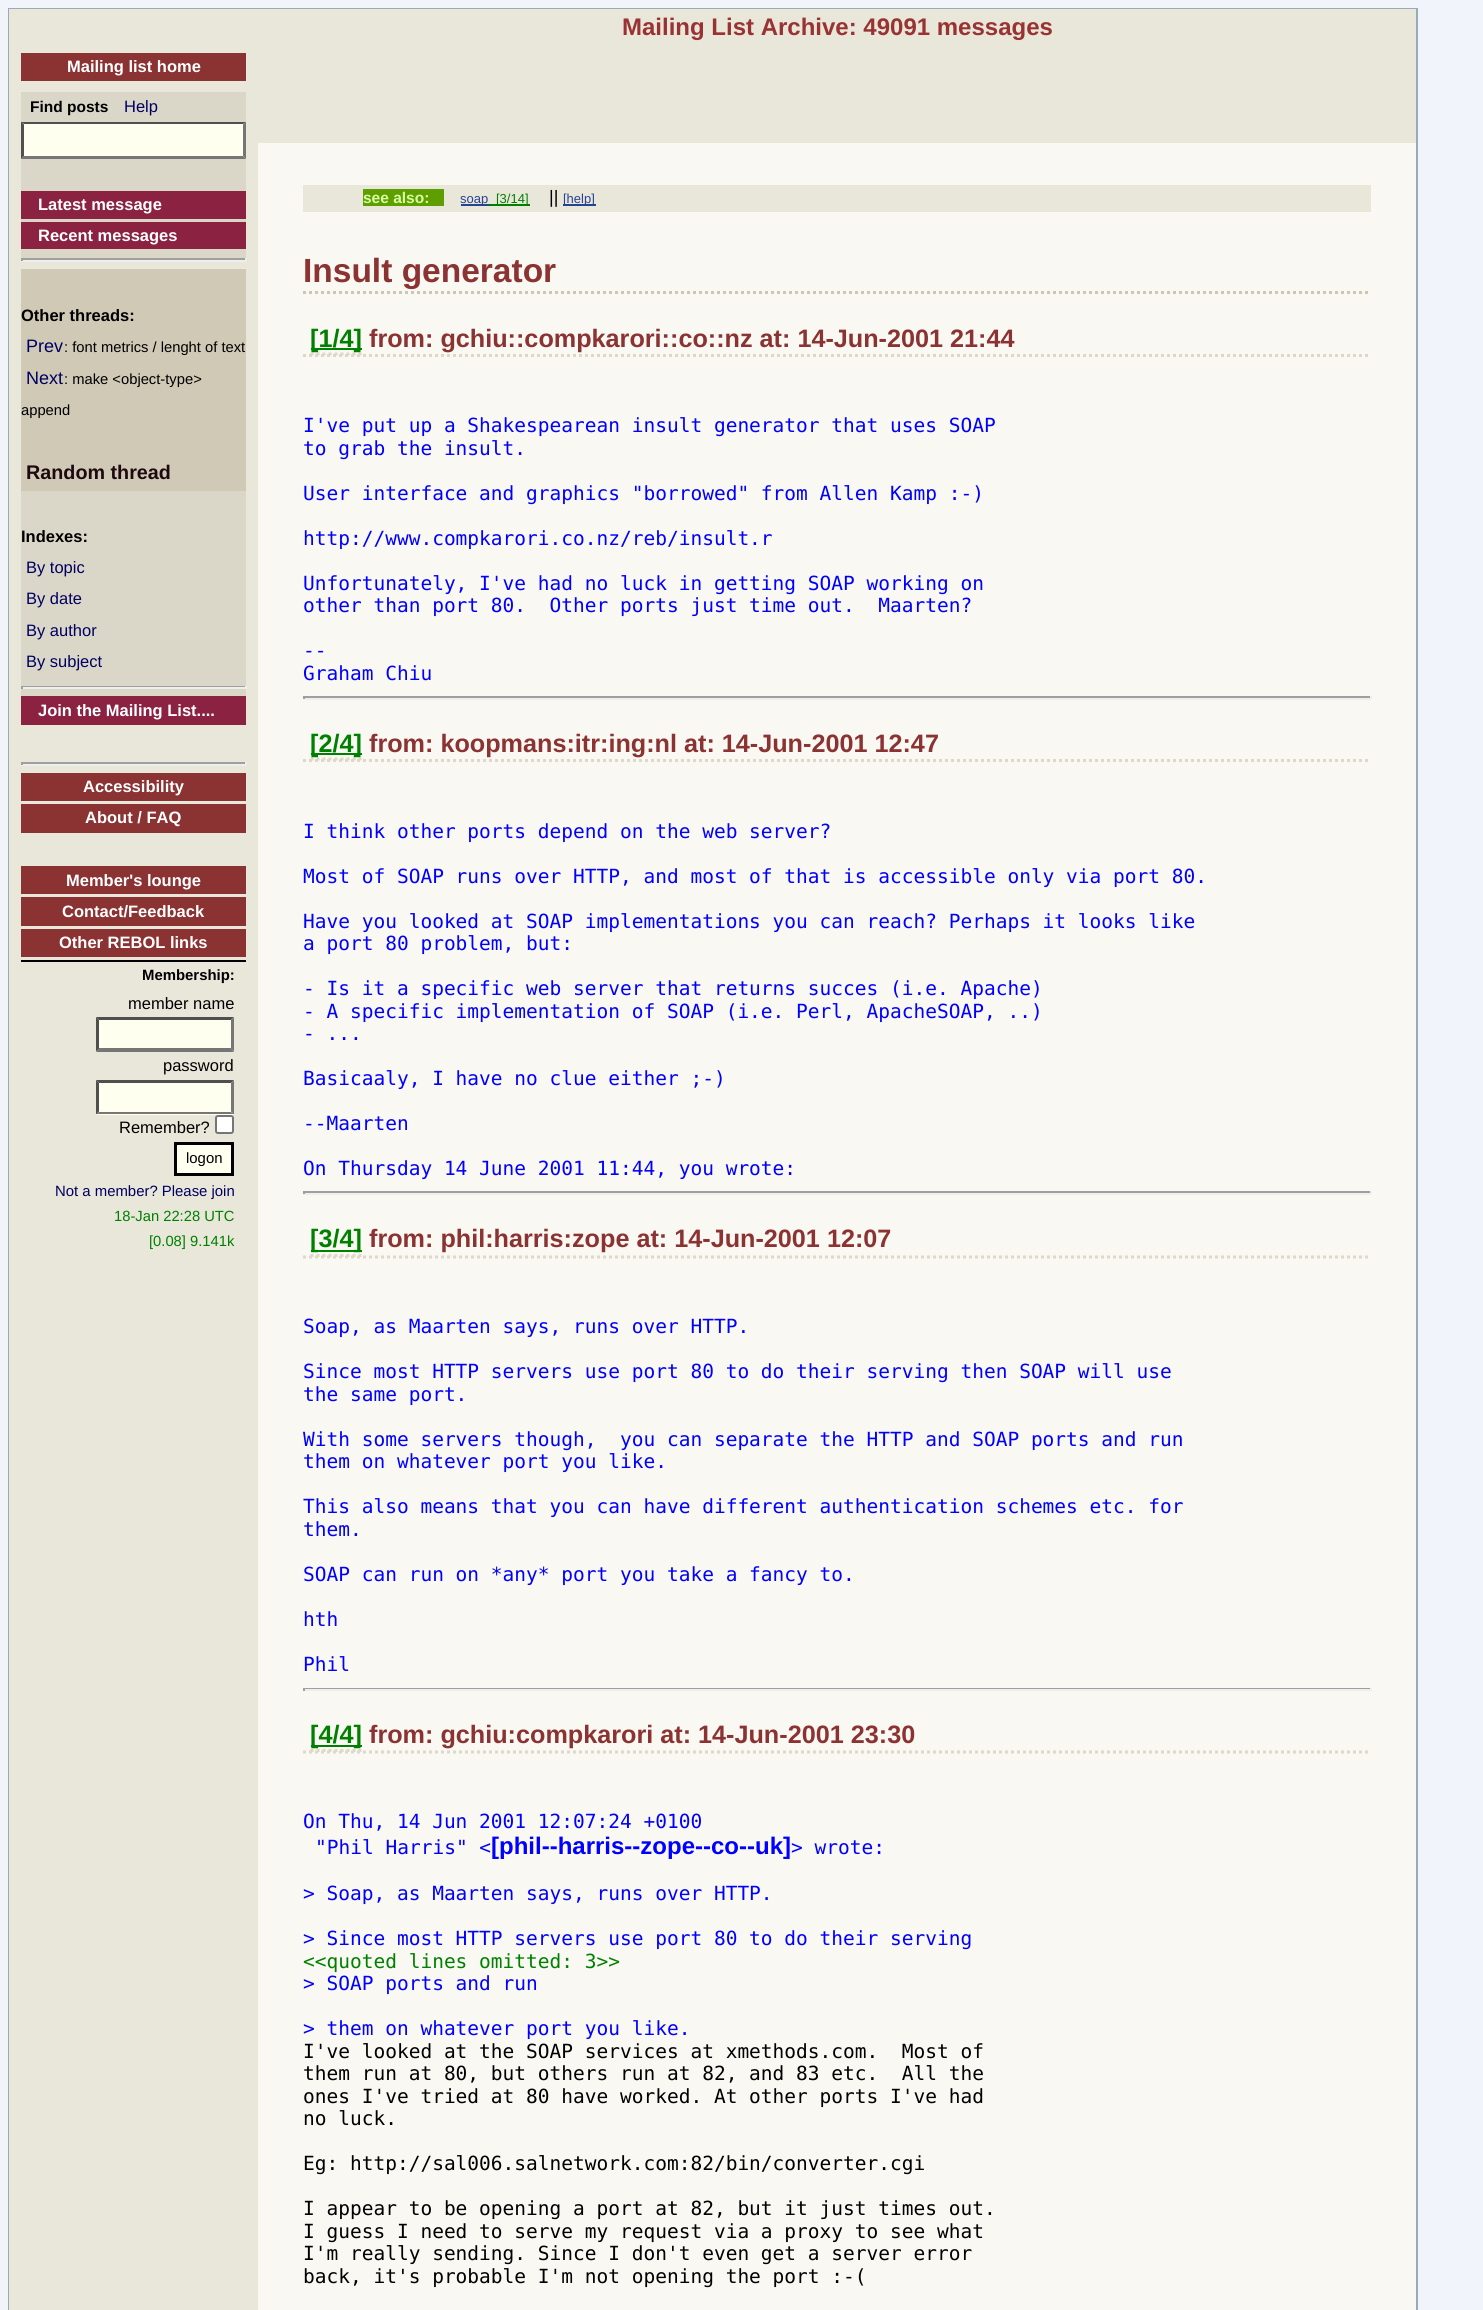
#include <cairo.h>
#include <math.h>
#include <stddef.h>

static cairo_t *c;
static void C(unsigned color){cairo_set_source_rgb(c, (color >> 16) / 255.0, (color >> 8 & 255) / 255.0, (color & 255) / 255.0);}
static void F(const char *family, double size, int italic, int bold){cairo_select_font_face(c, family, italic ? CAIRO_FONT_SLANT_ITALIC : CAIRO_FONT_SLANT_NORMAL,bold ? CAIRO_FONT_WEIGHT_BOLD : CAIRO_FONT_WEIGHT_NORMAL);cairo_set_font_size(c, size);}
static void T(double x, double y, const char *s){cairo_move_to(c, x, y);cairo_show_text(c, s);}
static void R(double x, double y, double w, double h){cairo_rectangle(c, x, y, w, h);cairo_fill(c);}
static void Q(double x, double y, double w, double h, double r){cairo_new_sub_path(c);cairo_arc(c, x + w - r, y + h - r, r, 0, M_PI / 2);cairo_arc(c, x + r, y + h - r, r, M_PI / 2, M_PI);cairo_arc(c, x + r, y + r, r, M_PI, 1.5 * M_PI);cairo_arc(c, x + w - r, y + r, r, 1.5 * M_PI, 2 * M_PI);cairo_close_path(c);}
int main(void) {
cairo_surface_t *surface = cairo_image_surface_create(CAIRO_FORMAT_RGB24, 1483, 2310);
c = cairo_create(surface);
cairo_font_options_t *options = cairo_font_options_create();
cairo_font_options_set_hint_metrics(options, CAIRO_HINT_METRICS_OFF);
cairo_font_options_set_hint_style(options, CAIRO_HINT_STYLE_NONE);
cairo_set_font_options(c, options);
cairo_set_miter_limit(c, 4);
C(0xf1f4fb);
cairo_paint(c);
cairo_rectangle(c,9,9,1408,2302);
C(0x99abbb);
cairo_stroke(c);
C(0xf9f8f2);
R(258,143,1158,2167);
C(0xe9e6da);
R(9,9,249,2301);
C(0x8b3232);
R(21,53,225,28);
F("Liberation Sans",16.5,0,1);
C(0xffffff);
T(67,72,"Mailing list home");
C(0xdbd7c8);
R(21,92,225,166);
F("Liberation Sans",15.5,0,1);
C(0x000000);
T(30,112,"Find posts");
F("Liberation Sans",16.5,0,0);
C(0x000060);
T(124,112,"Help");
C(0xfffff0);
R(21,122,225,37);
C(0x4f4f4f);
cairo_new_path(c);
cairo_move_to(c,21,122);
cairo_line_to(c,246,122);
cairo_line_to(c,243,124);
cairo_line_to(c,24,124);
cairo_close_path(c);
cairo_fill(c);
C(0x767676);
cairo_new_path(c);
cairo_move_to(c,246,121.5);
cairo_line_to(c,246,159);
cairo_line_to(c,243,156);
cairo_line_to(c,243,124.5);
cairo_close_path(c);
cairo_fill(c);
cairo_new_path(c);
cairo_move_to(c,246,159);
cairo_line_to(c,21,159);
cairo_line_to(c,24,156);
cairo_line_to(c,243,156);
cairo_close_path(c);
cairo_fill(c);
C(0x4f4f4f);
cairo_new_path(c);
cairo_move_to(c,21,159);
cairo_line_to(c,21,121.5);
cairo_line_to(c,24,124.5);
cairo_line_to(c,24,156);
cairo_close_path(c);
cairo_fill(c);
C(0x8b2242);
R(21,191,225,28);
F("Liberation Sans",16.5,0,1);
C(0xffffff);
T(38,210,"Latest message");
C(0x8b2242);
R(21,222,225,27);
C(0xffffff);
T(38,241,"Recent messages");
C(0x9f9f9f);
R(21,258,225,2);
C(0xeeeeee);
R(245,258,2,3);
R(21,260,225,2);
C(0x9f9f9f);
R(21,258,2,3);
C(0xcfc9b6);
R(21,269,225,222);
C(0x000000);
T(21,321,"Other threads:");
F("Liberation Sans",18,0,0);
C(0x000060);
T(26,352,"Prev");
F("Liberation Sans",14.75,0,0);
C(0x000000);
T(64,352,": font metrics / lenght of text");
F("Liberation Sans",18,0,0);
C(0x000060);
T(26,384,"Next");
F("Liberation Sans",14.75,0,0);
C(0x000000);
T(64,384,": make <object-type>");
T(21,415,"append");
F("Liberation Sans",19.75,0,1);
C(0x1e0910);
T(26,479,"Random thread");
C(0xdbd7c8);
R(21,491,225,205);
F("Liberation Sans",16.5,0,1);
C(0x000000);
T(21,542,"Indexes:");
F("Liberation Sans",16.5,0,0);
C(0x000060);
T(26,573,"By topic");
T(26,604,"By date");
T(26,636,"By author");
T(26,667,"By subject");
C(0x9f9f9f);
R(21,686,225,1);
C(0xeeeeee);
R(245,686,2,3);
R(21,687,225,2);
C(0x9f9f9f);
R(21,686,2,3);
C(0x8b2242);
R(21,696,225,29);
F("Liberation Sans",16.5,0,1);
C(0xffffff);
T(38,716,"Join the Mailing List....");
C(0x000000);
R(21,960,225,2);
C(0x9f9f9f);
R(21,762,225,2);
C(0xeeeeee);
R(245,762,2,3);
R(21,764,225,2);
C(0x9f9f9f);
R(21,762,2,3);
C(0x8b3232);
R(21,773,225,28);
C(0xffffff);
T(83,792,"Accessibility");
C(0x8b3232);
R(21,804,225,29);
C(0xffffff);
T(85,823,"About / FAQ");
C(0x8b3232);
R(21,866,225,28);
C(0xffffff);
T(66,886,"Member's lounge");
C(0x8b3232);
R(21,897,225,29);
C(0xffffff);
T(62,917,"Contact/Feedback");
C(0x8b3232);
R(21,929,225,28);
C(0xffffff);
T(59,948,"Other REBOL links");
F("Liberation Sans",14.9,0,1);
C(0x000000);
T(142,980,"Membership:");
F("Liberation Sans",16.5,0,0);
T(128,1009,"member name");
C(0xfffff0);
R(96,1017,138,35);
C(0x4f4f4f);
cairo_new_path(c);
cairo_move_to(c,96,1017);
cairo_line_to(c,234,1017);
cairo_line_to(c,231,1020);
cairo_line_to(c,99,1020);
cairo_close_path(c);
cairo_fill(c);
C(0x767676);
cairo_new_path(c);
cairo_move_to(c,234,1017);
cairo_line_to(c,234,1051.5);
cairo_line_to(c,231,1048.5);
cairo_line_to(c,231,1020);
cairo_close_path(c);
cairo_fill(c);
cairo_new_path(c);
cairo_move_to(c,234,1052);
cairo_line_to(c,96,1052);
cairo_line_to(c,99,1048);
cairo_line_to(c,231,1048);
cairo_close_path(c);
cairo_fill(c);
C(0x4f4f4f);
cairo_new_path(c);
cairo_move_to(c,96,1051.5);
cairo_line_to(c,96,1017);
cairo_line_to(c,99,1020);
cairo_line_to(c,99,1048.5);
cairo_close_path(c);
cairo_fill(c);
C(0x000000);
T(163,1071,"password");
C(0xfffff0);
R(96,1080,138,35);
C(0x4f4f4f);
cairo_new_path(c);
cairo_move_to(c,96,1080);
cairo_line_to(c,234,1080);
cairo_line_to(c,231,1083);
cairo_line_to(c,99,1083);
cairo_close_path(c);
cairo_fill(c);
C(0x767676);
cairo_new_path(c);
cairo_move_to(c,234,1080);
cairo_line_to(c,234,1114.5);
cairo_line_to(c,231,1111.5);
cairo_line_to(c,231,1083);
cairo_close_path(c);
cairo_fill(c);
cairo_new_path(c);
cairo_move_to(c,234,1114);
cairo_line_to(c,96,1114);
cairo_line_to(c,99,1112);
cairo_line_to(c,231,1112);
cairo_close_path(c);
cairo_fill(c);
C(0x4f4f4f);
cairo_new_path(c);
cairo_move_to(c,96,1114.5);
cairo_line_to(c,96,1080);
cairo_line_to(c,99,1083);
cairo_line_to(c,99,1111.5);
cairo_close_path(c);
cairo_fill(c);
C(0x000000);
T(119,1133,"Remember?");
C(0xffffff);
Q(216,1116,17,17,2);
cairo_fill_preserve(c);
C(0x767676);
cairo_stroke(c);
C(0xfffff0);
cairo_rectangle(c,175.5,1143.5,57,31);
cairo_fill_preserve(c);
C(0x000000);
cairo_set_line_width(c,3);
cairo_stroke(c);
F("Liberation Sans",14.9,0,0);
T(186,1163,"logon");
C(0x000060);
T(55,1196,"Not a member? Please join");
F("Liberation Sans",14.75,0,0);
C(0x008000);
T(114,1221,"18-Jan 22:28 UTC");
T(149,1246,"[0.08] 9.141k");
C(0xe9e6da);
R(258,9,1158,134);
F("Liberation Sans",24,0,1);
C(0x993333);
T(622,35,"Mailing List Archive: 49091 messages");
C(0xe9e6da);
R(303,185,1068,27);
C(0x5e9e00);
R(363,189,81,17);
F("Liberation Sans",15.5,0,1);
C(0xd6ffa1);
T(363,203,"see also:");
C(0x254293);
R(461,204,28,2);
F("Liberation Sans",13,0,0);
T(460,203,"soap");
C(0x008000);
R(489,204,41,2);
T(496,203,"[3/14]");
F("Liberation Sans",18,0,0);
C(0x000000);
T(549,203,"||");
C(0x254293);
R(563,204,33,2);
F("Liberation Sans",13,0,0);
T(563,203,"[help]");
cairo_new_path(c);
cairo_move_to(c,303,292.5);
cairo_line_to(c,1371,292.5);
C(0xccc6b5);
cairo_set_dash(c,(double[]){3,3},2,0);
cairo_stroke(c);
F("Liberation Sans",33.5,0,1);
C(0x8b3232);
T(303,282,"Insult generator");
cairo_new_path(c);
cairo_move_to(c,303,355.5);
cairo_line_to(c,1371,355.5);
C(0xddd8c9);
cairo_stroke(c);
cairo_new_path(c);
cairo_move_to(c,310.5,354);
cairo_line_to(c,361.5,354);
cairo_stroke(c);
C(0x008000);
R(311,348,51,2);
F("Liberation Sans",25.2,0,1);
T(310,347,"[1/4]");
C(0x8b3232);
T(369,347,"from: gchiu::compkarori::co::nz at: 14-Jun-2001 21:44");
F("DejaVu Sans Mono",19.5,0,0);
C(0x0000ff);
T(303,432,"I've put up a Shakespearean insult generator that uses SOAP");
T(303,455,"to grab the insult.");
T(303,500,"User interface and graphics \"borrowed\" from Allen Kamp :-)");
T(303,545,"http://www.compkarori.co.nz/reb/insult.r");
T(303,590,"Unfortunately, I've had no luck in getting SOAP working on");
T(303,612,"other than port 80.  Other ports just time out.  Maarten?");
T(303,657,"--");
T(303,680,"Graham Chiu");
C(0x9f9f9f);
R(303,696,1068,2);
C(0xeeeeee);
R(1370,696,2,3);
R(303,698,1068,2);
C(0x9f9f9f);
R(303,696,2,3);
cairo_new_path(c);
cairo_move_to(c,303,760.5);
cairo_line_to(c,1371,760.5);
C(0xddd8c9);
cairo_stroke(c);
cairo_new_path(c);
cairo_move_to(c,310.5,759);
cairo_line_to(c,361.5,759);
cairo_stroke(c);
C(0x008000);
R(311,753,51,2);
F("Liberation Sans",25.2,0,1);
T(310,752,"[2/4]");
C(0x8b3232);
T(369,752,"from: koopmans:itr:ing:nl at: 14-Jun-2001 12:47");
F("DejaVu Sans Mono",19.5,0,0);
C(0x0000ff);
T(303,838,"I think other ports depend on the web server?");
T(303,883,"Most of SOAP runs over HTTP, and most of that is accessible only via port 80.");
T(303,928,"Have you looked at SOAP implementations you can reach? Perhaps it looks like");
T(303,950,"a port 80 problem, but:");
T(303,995,"- Is it a specific web server that returns succes (i.e. Apache)");
T(303,1018,"- A specific implementation of SOAP (i.e. Perl, ApacheSOAP, ..)");
T(303,1040,"- ...");
T(303,1085,"Basicaaly, I have no clue either ;-)");
T(303,1130,"--Maarten");
T(303,1175,"On Thursday 14 June 2001 11:44, you wrote:");
C(0x9f9f9f);
R(303,1191,1068,2);
C(0xeeeeee);
R(1370,1191,2,3);
R(303,1193,1068,2);
C(0x9f9f9f);
R(303,1191,2,3);
cairo_new_path(c);
cairo_move_to(c,303,1257);
cairo_line_to(c,1371,1257);
C(0xddd8c9);
cairo_stroke(c);
C(0x008000);
R(311,1250,51,2);
F("Liberation Sans",25.2,0,1);
T(310,1247,"[3/4]");
cairo_new_path(c);
cairo_move_to(c,310.5,1255.5);
cairo_line_to(c,361.5,1255.5);
C(0xddd8c9);
cairo_stroke(c);
C(0x8b3232);
T(369,1247,"from: phil:harris:zope at: 14-Jun-2001 12:07");
F("DejaVu Sans Mono",19.5,0,0);
C(0x0000ff);
T(303,1333,"Soap, as Maarten says, runs over HTTP.");
T(303,1378,"Since most HTTP servers use port 80 to do their serving then SOAP will use");
T(303,1401,"the same port.");
T(303,1446,"With some servers though,  you can separate the HTTP and SOAP ports and run");
T(303,1468,"them on whatever port you like.");
T(303,1513,"This also means that you can have different authentication schemes etc. for");
T(303,1536,"them.");
T(303,1581,"SOAP can run on *any* port you take a fancy to.");
T(303,1626,"hth");
T(303,1671,"Phil");
C(0x9f9f9f);
R(303,1688,1068,1);
C(0xeeeeee);
R(1370,1688,2,3);
R(303,1689,1068,2);
C(0x9f9f9f);
R(303,1688,2,3);
cairo_new_path(c);
cairo_move_to(c,303,1752);
cairo_line_to(c,1371,1752);
C(0xddd8c9);
cairo_stroke(c);
C(0x008000);
R(311,1745,51,2);
F("Liberation Sans",25.2,0,1);
T(310,1743,"[4/4]");
cairo_new_path(c);
cairo_move_to(c,310.5,1750.5);
cairo_line_to(c,361.5,1750.5);
C(0xddd8c9);
cairo_stroke(c);
C(0x8b3232);
T(369,1743,"from: gchiu:compkarori at: 14-Jun-2001 23:30");
F("DejaVu Sans Mono",19.5,0,0);
C(0x0000ff);
T(303,1828,"On Thu, 14 Jun 2001 12:07:24 +0100");
T(315,1854,"\"Phil Harris\" <");
F("Liberation Sans",24,0,1);
T(491,1854,"[phil--harris--zope--co--uk]");
F("DejaVu Sans Mono",19.5,0,0);
T(791,1854,"> wrote:");
T(303,1900,"> Soap, as Maarten says, runs over HTTP.");
T(303,1945,"> Since most HTTP servers use port 80 to do their serving");
C(0x008000);
T(303,1968,"<<quoted lines omitted: 3>>");
C(0x0000ff);
T(303,1990,"> SOAP ports and run");
T(303,2035,"> them on whatever port you like.");
C(0x000000);
T(303,2058,"I've looked at the SOAP services at xmethods.com.  Most of");
T(303,2080,"them run at 80, but others run at 82, and 83 etc.  All the");
T(303,2103,"ones I've tried at 80 have worked. At other ports I've had");
T(303,2125,"no luck.");
T(303,2170,"Eg: http://sal006.salnetwork.com:82/bin/converter.cgi");
T(303,2215,"I appear to be opening a port at 82, but it just times out.");
T(303,2238,"I guess I need to serve my request via a proxy to see what");
T(303,2260,"I'm really sending. Since I don't even get a server error");
T(303,2283,"back, it's probable I'm not opening the port :-(");
cairo_surface_write_to_png(surface, "o.png");
cairo_font_options_destroy(options);
cairo_destroy(c);
cairo_surface_destroy(surface);
return 0;
}
